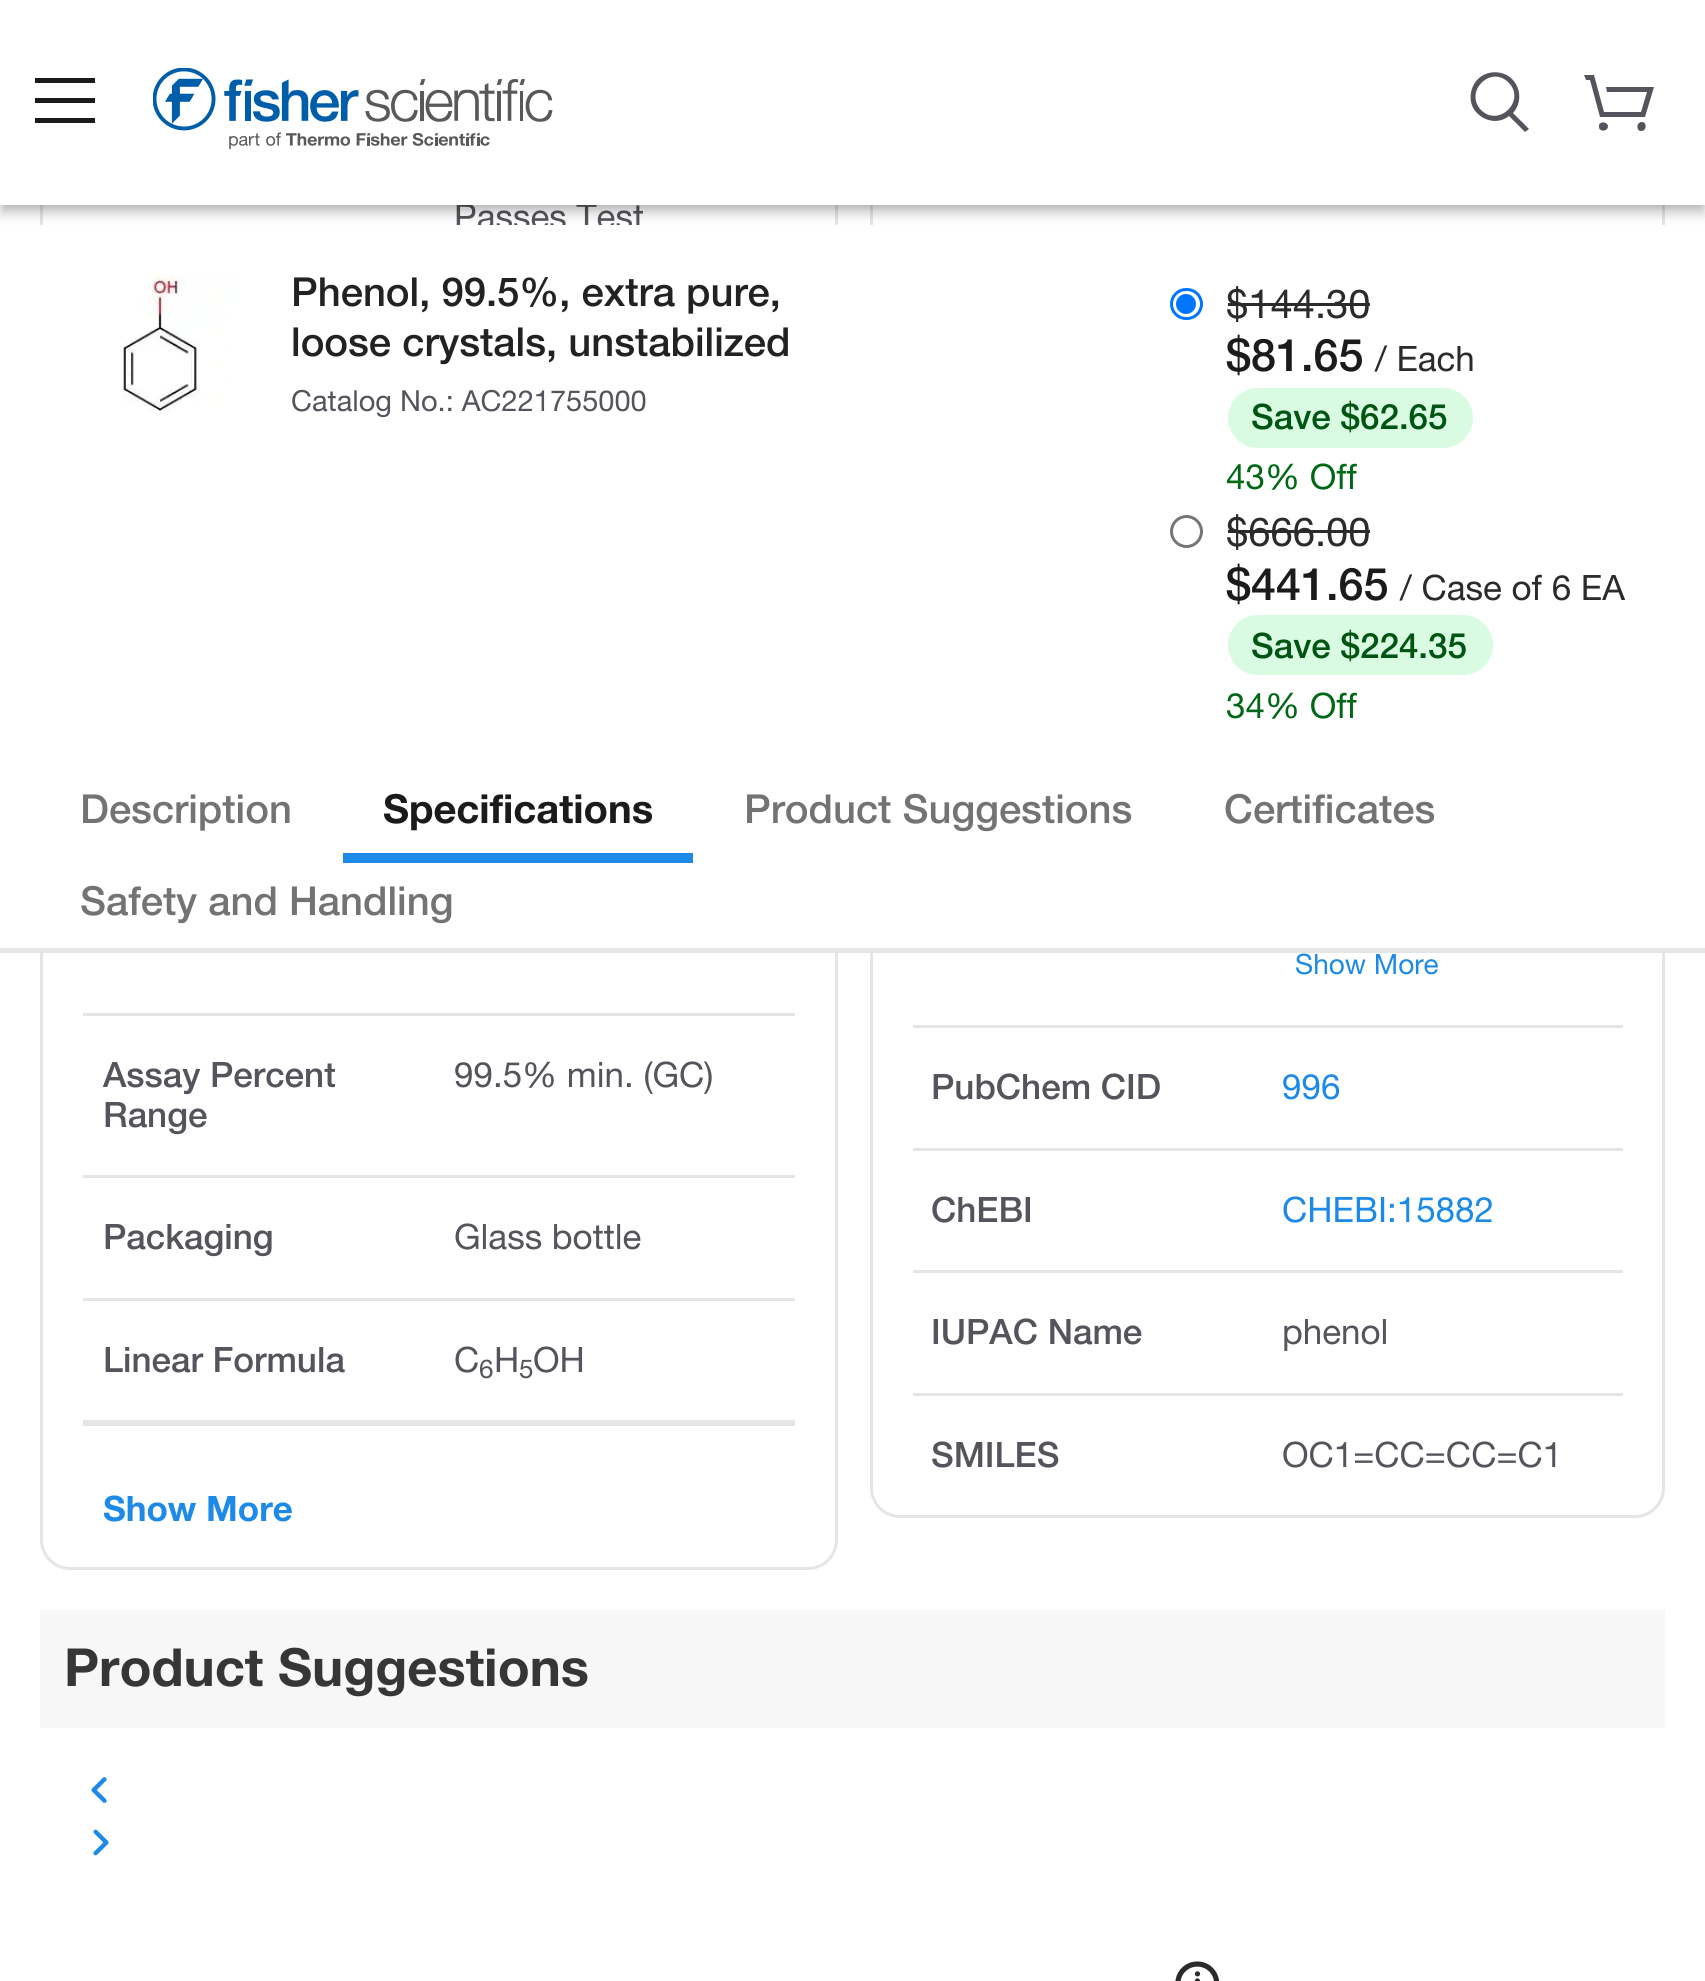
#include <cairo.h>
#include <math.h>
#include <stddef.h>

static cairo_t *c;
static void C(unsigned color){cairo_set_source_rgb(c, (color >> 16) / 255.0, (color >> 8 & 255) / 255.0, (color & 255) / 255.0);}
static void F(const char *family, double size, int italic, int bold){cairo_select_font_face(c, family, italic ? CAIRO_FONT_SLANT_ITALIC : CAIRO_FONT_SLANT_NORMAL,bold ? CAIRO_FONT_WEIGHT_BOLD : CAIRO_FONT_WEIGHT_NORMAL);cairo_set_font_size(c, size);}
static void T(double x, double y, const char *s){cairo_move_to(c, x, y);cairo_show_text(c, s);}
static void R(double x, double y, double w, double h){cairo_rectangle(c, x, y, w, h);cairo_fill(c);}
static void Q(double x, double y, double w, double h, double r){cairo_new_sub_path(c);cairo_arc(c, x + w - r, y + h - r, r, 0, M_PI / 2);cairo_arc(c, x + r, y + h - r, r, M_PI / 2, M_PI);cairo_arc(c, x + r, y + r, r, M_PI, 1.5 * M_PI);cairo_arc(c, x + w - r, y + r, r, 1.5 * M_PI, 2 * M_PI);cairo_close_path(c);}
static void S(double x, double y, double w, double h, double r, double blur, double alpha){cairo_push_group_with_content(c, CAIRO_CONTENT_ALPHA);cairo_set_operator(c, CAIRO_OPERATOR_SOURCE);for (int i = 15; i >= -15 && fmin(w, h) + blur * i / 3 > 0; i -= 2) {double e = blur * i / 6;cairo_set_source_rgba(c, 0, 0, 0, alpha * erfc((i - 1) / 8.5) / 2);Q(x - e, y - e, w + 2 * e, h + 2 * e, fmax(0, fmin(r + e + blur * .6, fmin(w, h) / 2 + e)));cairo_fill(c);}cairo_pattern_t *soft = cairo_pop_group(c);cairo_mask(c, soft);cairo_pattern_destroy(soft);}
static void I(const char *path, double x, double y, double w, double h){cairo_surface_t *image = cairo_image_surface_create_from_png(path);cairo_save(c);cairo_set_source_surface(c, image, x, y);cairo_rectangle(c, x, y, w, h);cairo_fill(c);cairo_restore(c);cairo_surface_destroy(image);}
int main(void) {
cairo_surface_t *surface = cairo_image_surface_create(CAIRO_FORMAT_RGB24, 1705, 1981);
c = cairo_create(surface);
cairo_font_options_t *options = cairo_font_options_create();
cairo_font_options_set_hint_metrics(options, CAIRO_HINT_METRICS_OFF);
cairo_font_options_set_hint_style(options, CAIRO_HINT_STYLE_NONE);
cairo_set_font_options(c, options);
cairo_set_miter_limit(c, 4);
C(0xffffff);
cairo_paint(c);
Q(41.5,116.5,795,1452,28.5);
C(0xe5e5e5);
cairo_set_line_width(c,3);
cairo_stroke(c);
Q(871.5,116.5,792,1400,28.5);
cairo_stroke(c);
F("Helvetica Neue",35,0,0);
C(0x54545c);
T(454,229,"Passes Test");
C(0xffffff);
R(40,225,1625,723);
C(0x000000);
S(0,10,1705,205,0,6,.14);
S(3,8,1700,200,0,5,.2);
C(0xffffff);
R(0,0,1705,205);
C(0x1b1b1d);
R(35,98,60,5);
R(35,78,60,5);
R(35,118,60,5);
I("1.png",153,68,400,82);
C(0x54545c);
cairo_new_path(c);
cairo_move_to(c,1529,129);
cairo_line_to(c,1513,113);
cairo_curve_to(c,1522,103,1521,88,1512,79);
cairo_curve_to(c,1503,70,1487,70,1478,79);
cairo_curve_to(c,1469,88,1468,103,1476,112);
cairo_curve_to(c,1485,122,1499,124,1509,116);
cairo_line_to(c,1525,132);
cairo_close_path(c);
cairo_move_to(c,1481,110);
cairo_curve_to(c,1464,92,1490,65,1508,82);
cairo_curve_to(c,1527,100,1499,128,1481,110);
cairo_close_path(c);
cairo_fill(c);
cairo_new_path(c);
cairo_move_to(c,1608,126);
cairo_curve_to(c,1608,132,1599,132,1599,127);
cairo_curve_to(c,1598,121,1607,121,1608,126);
cairo_close_path(c);
cairo_move_to(c,1642,122);
cairo_curve_to(c,1636,122,1636,131,1641,131);
cairo_curve_to(c,1647,131,1647,122,1642,122);
cairo_close_path(c);
cairo_move_to(c,1645,117);
cairo_line_to(c,1654,87);
cairo_line_to(c,1606,87);
cairo_line_to(c,1607,92);
cairo_line_to(c,1647,92);
cairo_line_to(c,1641,112);
cairo_line_to(c,1604,112);
cairo_line_to(c,1594,75);
cairo_line_to(c,1584,75);
cairo_line_to(c,1586,80);
cairo_line_to(c,1590,80);
cairo_line_to(c,1600,117);
cairo_close_path(c);
cairo_fill(c);
C(0xe5e5e5);
R(83,1013,712,3);
F("Helvetica Neue Medium",35,0,0);
C(0x54545c);
T(103,1087,"Assay Percent");
T(103,1127,"Range");
F("Helvetica Neue",35,0,0);
T(454,1087,"99.5% min. (GC)");
C(0xe5e5e5);
R(83,1175,712,3);
F("Helvetica Neue Medium",35,0,0);
C(0x54545c);
T(103,1249,"Packaging");
F("Helvetica Neue",35,0,0);
T(454,1249,"Glass bottle");
C(0xe5e5e5);
R(83,1298,712,3);
F("Helvetica Neue Medium",35,0,0);
C(0x54545c);
T(103,1372,"Linear Formula");
F("Helvetica Neue",35,0,0);
T(454,1372,"C");
F("Helvetica Neue",26,0,0);
T(479,1378,"6");
F("Helvetica Neue",35,0,0);
T(494,1372,"H");
F("Helvetica Neue",26,0,0);
T(519,1378,"5");
F("Helvetica Neue",35,0,0);
T(533,1372,"OH");
C(0xe5e5e5);
R(83,1420,712,6);
F("Helvetica Neue",35,0,1);
C(0x1e8ae7);
T(103,1521,"Show More");
F("Helvetica Neue",28,0,0);
T(1295,974,"Show More");
C(0xe5e5e5);
R(913,1025,710,3);
F("Helvetica Neue Medium",35,0,0);
C(0x54545c);
T(931,1099,"PubChem CID");
F("Helvetica Neue",35,0,0);
C(0x1e8ae7);
T(1282,1099,"996");
C(0xe5e5e5);
R(913,1148,710,3);
F("Helvetica Neue Medium",35,0,0);
C(0x54545c);
T(931,1222,"ChEBI");
F("Helvetica Neue",35,0,0);
C(0x1e8ae7);
T(1282,1222,"CHEBI:15882");
C(0xe5e5e5);
R(913,1270,710,3);
F("Helvetica Neue Medium",35,0,0);
C(0x54545c);
T(931,1344,"IUPAC Name");
F("Helvetica Neue",35,0,0);
T(1282,1344,"phenol");
C(0xe5e5e5);
R(913,1393,710,3);
F("Helvetica Neue Medium",35,0,0);
C(0x54545c);
T(931,1467,"SMILES");
F("Helvetica Neue",35,0,0);
T(1282,1467,"OC1=CC=CC=C1");
C(0xe5e5e5);
R(0,948,1705,5);
F("Helvetica Neue Medium",40,0,0);
C(0x737373);
T(80,823,"Description");
C(0x1e8ae7);
R(343,853,350,10);
F("Helvetica Neue",40,0,1);
C(0x1b1b1d);
T(383,823,"Specifications");
F("Helvetica Neue Medium",40,0,0);
C(0x737373);
T(744,823,"Product Suggestions");
T(1224,823,"Certificates");
T(80,915,"Safety and Handling");
C(0xf7f7f7);
R(40,1610,1625,118);
F("Helvetica Neue",52.5,0,1);
C(0x363636);
T(64,1686,"Product Suggestions");
I("2.png",91,1777,16,26);
I("3.png",93,1829,16,27);
I("4.png",1175,1961,45,20);
I("5.png",122,273,118,142);
F("Helvetica Neue Medium",40,0,0);
C(0x222222);
T(291,306,"Phenol, 99.5%, extra pure,");
T(291,356,"loose crystals, unstabilized");
F("Helvetica Neue",29,0,0);
C(0x54545c);
T(291,411,"Catalog No.: AC221755000");
Q(1171.5,289.5,30,29,14.5);
C(0x0075ff);
cairo_stroke(c);
cairo_arc(c,1186,304,10,0,2 * M_PI);
cairo_fill(c);
F("Helvetica Neue",40,0,0);
C(0x2b2b2b);
T(1226,318,"$144.30");
R(1228,303,142,3);
F("Helvetica Neue Medium",45,0,0);
C(0x1b1b1d);
T(1226,371,"$81.65");
F("Helvetica Neue",35,0,0);
C(0x2b2b2b);
T(1375,371,"/ Each");
C(0xd9fbe2);
Q(1228,388,245,60,30);
cairo_fill(c);
F("Helvetica Neue Medium",35,0,0);
C(0x005512);
T(1251,429,"Save $62.65");
F("Helvetica Neue",35,0,0);
C(0x006816);
T(1226,489,"43% Off");
cairo_new_path(c);
cairo_arc(c,1186.5,531.5,15,0,2 * M_PI);
C(0x767676);
cairo_stroke(c);
F("Helvetica Neue",40,0,0);
C(0x2b2b2b);
T(1226,546,"$666.00");
R(1228,530,142,3);
F("Helvetica Neue Medium",45,0,0);
C(0x1b1b1d);
T(1226,600,"$441.65");
F("Helvetica Neue",35,0,0);
C(0x2b2b2b);
T(1400,600,"/ Case of 6 EA");
C(0xd9fbe2);
Q(1228,615,265,60,30);
cairo_fill(c);
F("Helvetica Neue Medium",35,0,0);
C(0x005512);
T(1251,658,"Save $224.35");
F("Helvetica Neue",35,0,0);
C(0x006816);
T(1226,718,"34% Off");
cairo_surface_write_to_png(surface, "o.png");
cairo_font_options_destroy(options);
cairo_destroy(c);
cairo_surface_destroy(surface);
return 0;
}
